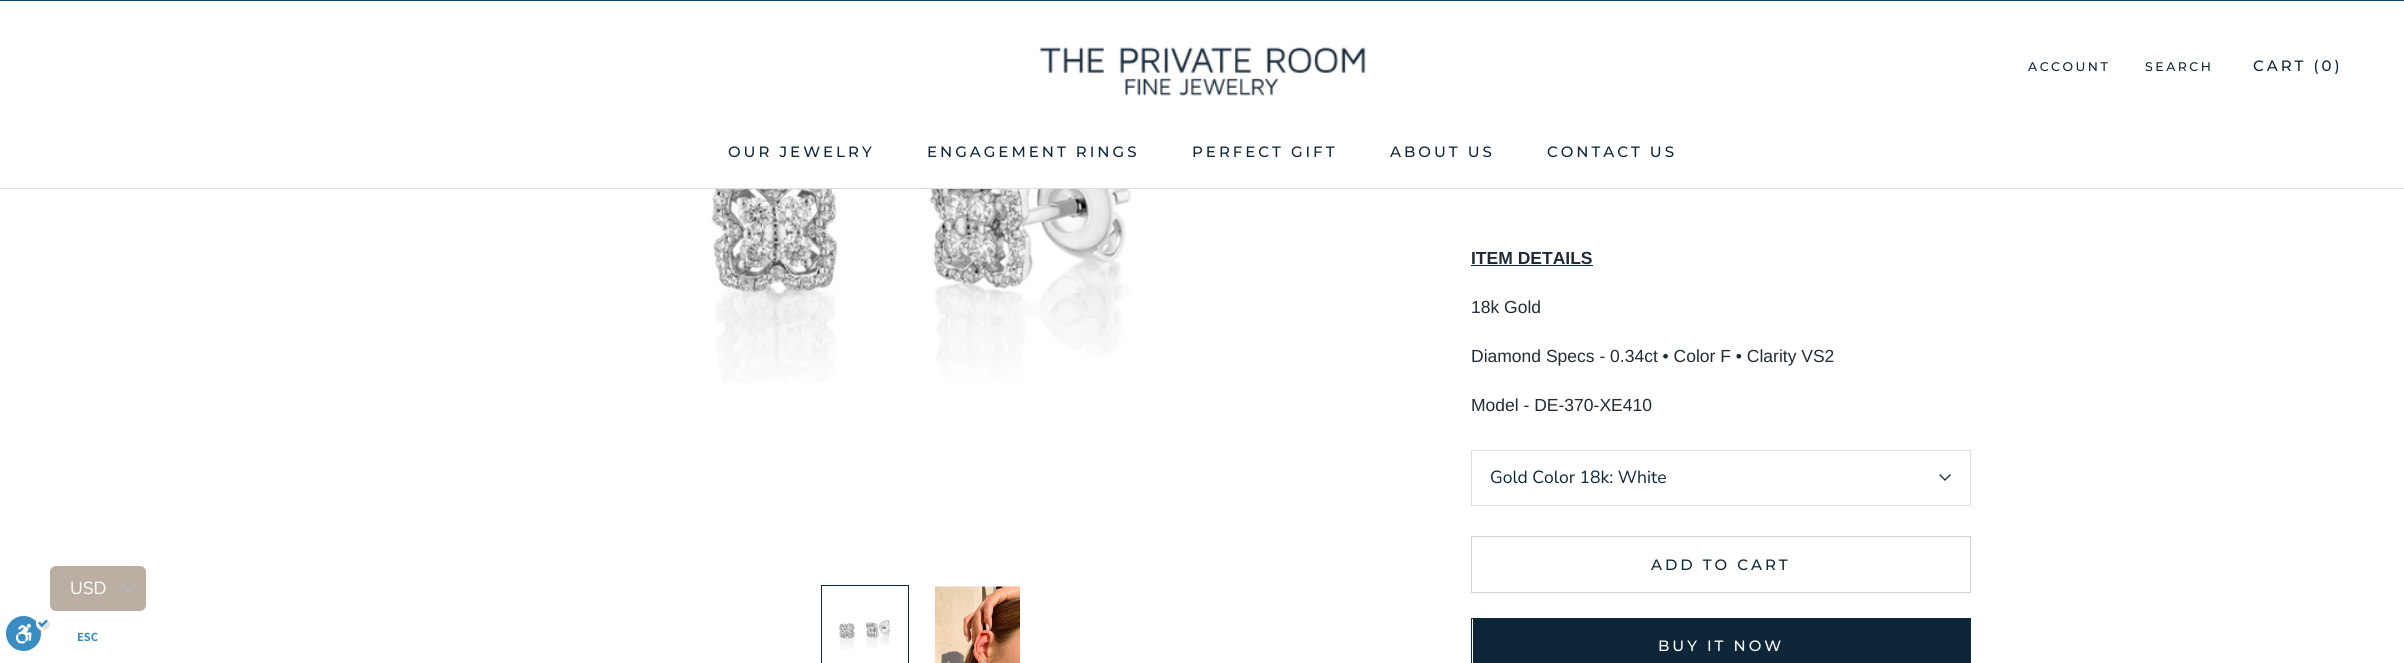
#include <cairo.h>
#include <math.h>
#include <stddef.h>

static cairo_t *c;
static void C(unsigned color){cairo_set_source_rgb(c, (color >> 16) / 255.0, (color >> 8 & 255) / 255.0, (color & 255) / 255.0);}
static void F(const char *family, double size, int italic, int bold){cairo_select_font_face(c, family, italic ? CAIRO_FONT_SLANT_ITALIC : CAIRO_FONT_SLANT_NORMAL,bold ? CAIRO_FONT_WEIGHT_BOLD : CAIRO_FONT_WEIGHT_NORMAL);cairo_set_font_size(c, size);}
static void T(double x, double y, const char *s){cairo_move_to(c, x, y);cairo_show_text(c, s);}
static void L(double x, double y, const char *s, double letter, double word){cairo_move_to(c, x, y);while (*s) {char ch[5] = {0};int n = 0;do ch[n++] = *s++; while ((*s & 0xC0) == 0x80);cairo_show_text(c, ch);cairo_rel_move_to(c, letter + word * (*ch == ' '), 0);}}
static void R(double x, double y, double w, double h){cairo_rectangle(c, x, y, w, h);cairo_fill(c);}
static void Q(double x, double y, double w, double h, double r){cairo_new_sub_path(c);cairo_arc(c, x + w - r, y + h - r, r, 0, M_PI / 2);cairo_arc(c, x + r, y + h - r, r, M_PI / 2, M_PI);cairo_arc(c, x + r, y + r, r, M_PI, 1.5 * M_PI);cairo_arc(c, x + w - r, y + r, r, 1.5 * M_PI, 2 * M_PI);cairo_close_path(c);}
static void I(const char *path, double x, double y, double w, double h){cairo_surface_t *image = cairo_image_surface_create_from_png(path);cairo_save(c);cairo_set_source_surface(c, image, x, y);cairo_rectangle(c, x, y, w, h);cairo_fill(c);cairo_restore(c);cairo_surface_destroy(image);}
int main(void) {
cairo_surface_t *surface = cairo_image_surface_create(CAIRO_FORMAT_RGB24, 2404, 663);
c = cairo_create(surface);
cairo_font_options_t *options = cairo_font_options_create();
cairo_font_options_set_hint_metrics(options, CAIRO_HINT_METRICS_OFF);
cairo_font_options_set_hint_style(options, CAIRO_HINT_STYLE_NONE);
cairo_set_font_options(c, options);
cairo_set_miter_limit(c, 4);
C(0xffffff);
cairo_paint(c);
C(0xbbaea3);
Q(50,566,96,45,6);
cairo_fill(c);
F("Nunito Sans",17.5,0,0);
C(0xffffff);
T(70,594,"USD");
cairo_new_path(c);
cairo_move_to(c,121.5,584);
cairo_line_to(c,128,591);
cairo_line_to(c,135,584);
C(0xb7b7b7);
cairo_set_line_width(c,2.3);
cairo_set_line_cap(c,CAIRO_LINE_CAP_ROUND);
cairo_set_line_join(c,CAIRO_LINE_JOIN_ROUND);
cairo_stroke(c);
C(0xdbdee1);
R(0,188,2404,1);
I("1.png",1039,47,327,49);
F("Montserrat Medium",12.5,0,0);
C(0x0d2638);
L(2028,71,"ACCOUNT",2.5,0);
L(2145,71,"SEARCH",2.5,0);
F("Montserrat Medium",15,0,0);
L(2253,71,"CART (0)",3,0);
L(728,157,"OUR JEWELRY",3,0);
L(927,157,"ENGAGEMENT RINGS",3,0);
L(1192,157,"PERFECT GIFT",3,0);
L(1390,157,"ABOUT US",3,0);
L(1547,157,"CONTACT US",3,0);
I("2.png",711,189,421,194);
cairo_rectangle(c,821.5,585.5,87,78);
cairo_set_line_width(c,1);
cairo_set_line_cap(c,CAIRO_LINE_CAP_BUTT);
cairo_set_line_join(c,CAIRO_LINE_JOIN_MITER);
cairo_stroke(c);
I("3.png",839,619,52,31);
I("4.png",935,586,85,77);
F("Liberation Sans",17.5,0,1);
C(0x212b36);
T(1471,264,"ITEM DETAILS");
C(0x0d2638);
R(1471,265,122,1);
F("Liberation Sans",17.5,0,0);
C(0x212b36);
T(1471,313,"18k Gold");
T(1471,362,"Diamond Specs - 0.34ct • Color F • Clarity VS2");
T(1471,411,"Model - DE-370-XE410");
cairo_rectangle(c,1471.5,450.5,499,55);
C(0xdbdee1);
cairo_stroke(c);
F("Nunito Sans",17.5,0,0);
C(0x0d2638);
T(1490,483,"Gold Color 18k: White");
cairo_new_path(c);
cairo_move_to(c,1950,475);
cairo_line_to(c,1945,480);
cairo_line_to(c,1940,475);
cairo_set_line_width(c,1.3);
cairo_set_line_cap(c,CAIRO_LINE_CAP_SQUARE);
cairo_stroke(c);
cairo_rectangle(c,1471.5,536.5,499,56);
C(0xcfd4d7);
cairo_set_line_width(c,1);
cairo_set_line_cap(c,CAIRO_LINE_CAP_BUTT);
cairo_stroke(c);
F("Montserrat Medium",15,0,0);
C(0x0d2638);
L(1651,570,"ADD TO CART",3,0);
cairo_rectangle(c,1471.5,618.5,499,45);
cairo_stroke(c);
R(1473,619,497,44);
C(0xffffff);
L(1658,651,"BUY IT NOW",3,0);
C(0x15495f);
R(0,0,2404,1);
I("5.png",6,616,44,35);
F("Assistant",12.5,0,1);
C(0x3a8dc2);
T(77,641,"ESC");
cairo_surface_write_to_png(surface, "o.png");
cairo_font_options_destroy(options);
cairo_destroy(c);
cairo_surface_destroy(surface);
return 0;
}
